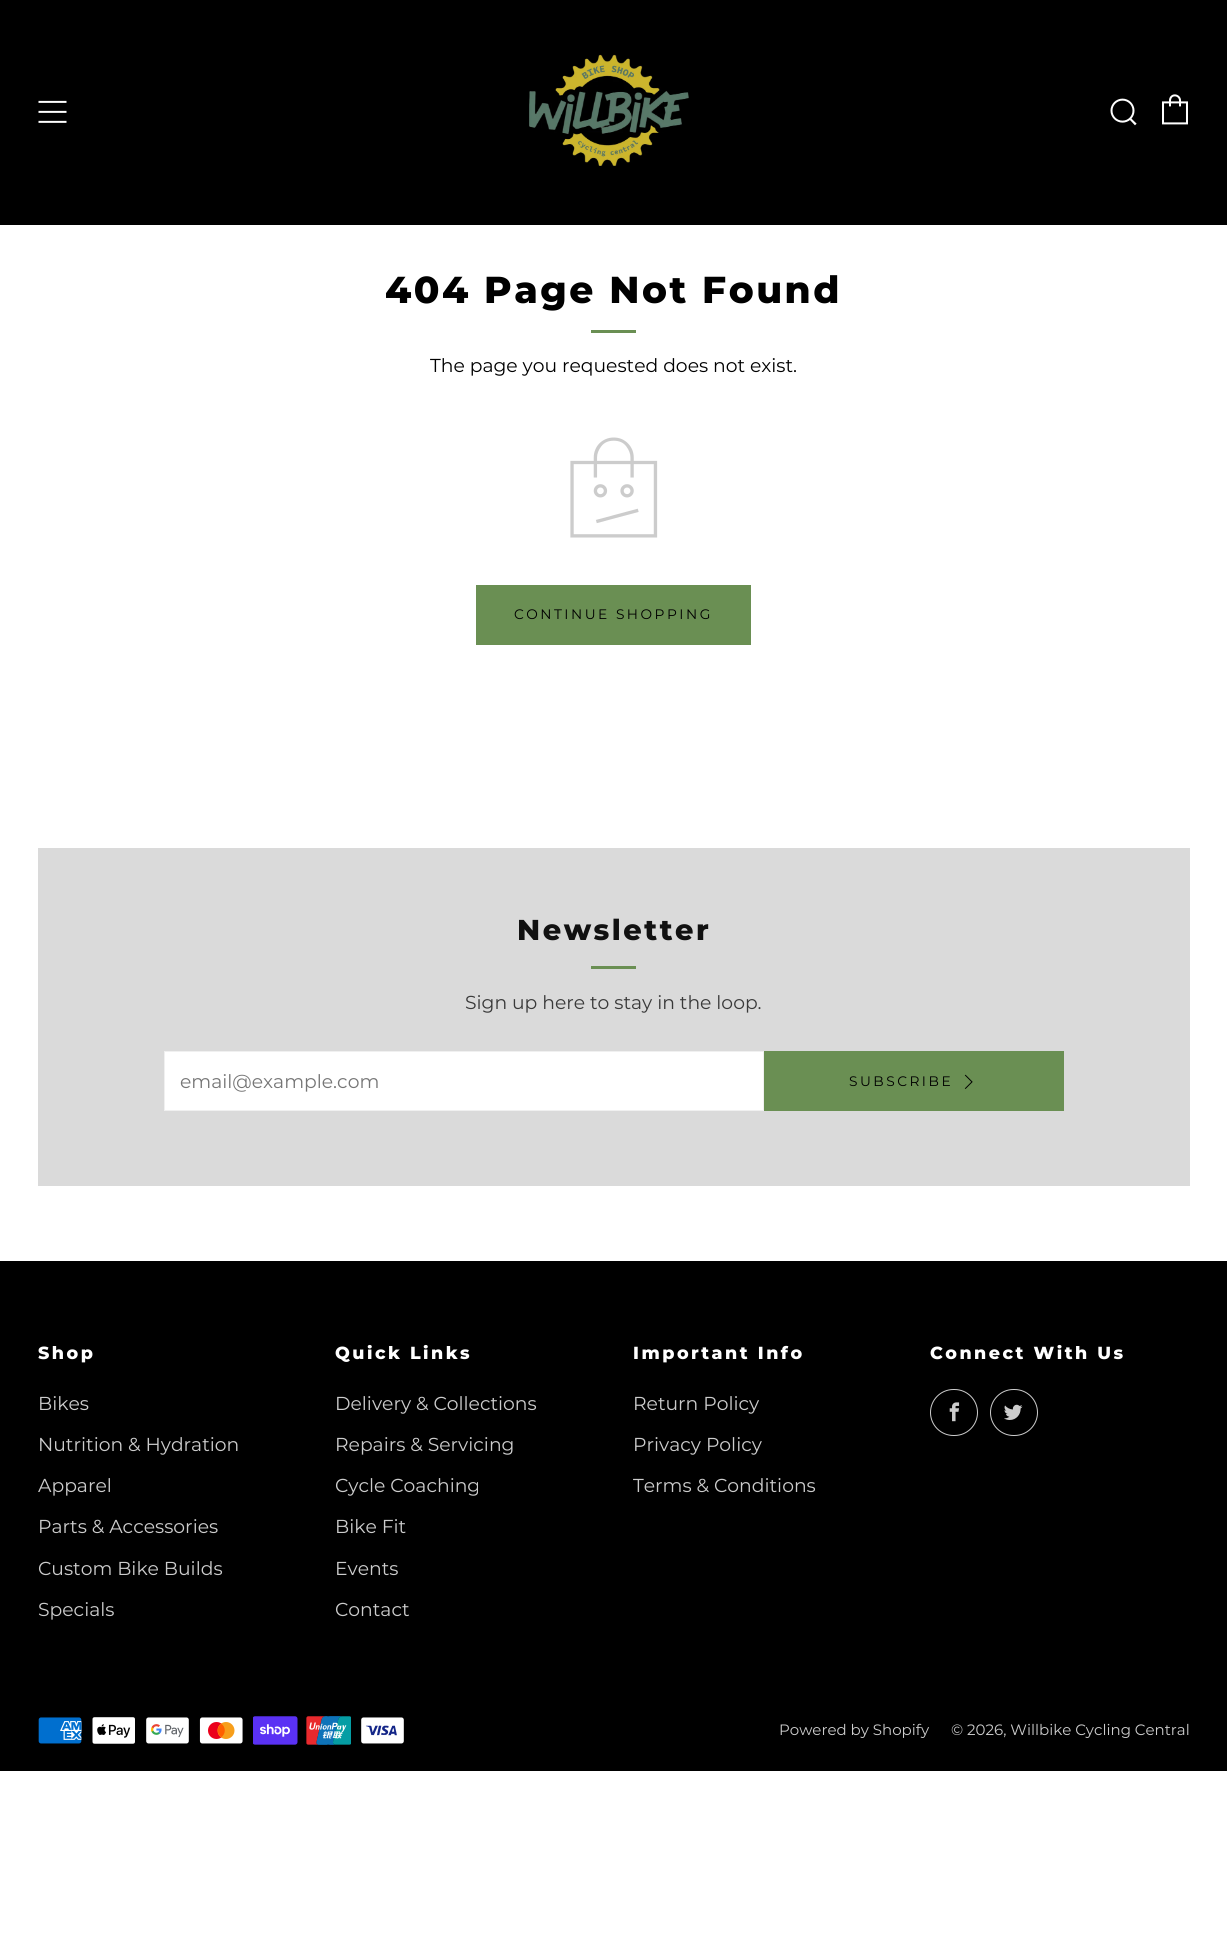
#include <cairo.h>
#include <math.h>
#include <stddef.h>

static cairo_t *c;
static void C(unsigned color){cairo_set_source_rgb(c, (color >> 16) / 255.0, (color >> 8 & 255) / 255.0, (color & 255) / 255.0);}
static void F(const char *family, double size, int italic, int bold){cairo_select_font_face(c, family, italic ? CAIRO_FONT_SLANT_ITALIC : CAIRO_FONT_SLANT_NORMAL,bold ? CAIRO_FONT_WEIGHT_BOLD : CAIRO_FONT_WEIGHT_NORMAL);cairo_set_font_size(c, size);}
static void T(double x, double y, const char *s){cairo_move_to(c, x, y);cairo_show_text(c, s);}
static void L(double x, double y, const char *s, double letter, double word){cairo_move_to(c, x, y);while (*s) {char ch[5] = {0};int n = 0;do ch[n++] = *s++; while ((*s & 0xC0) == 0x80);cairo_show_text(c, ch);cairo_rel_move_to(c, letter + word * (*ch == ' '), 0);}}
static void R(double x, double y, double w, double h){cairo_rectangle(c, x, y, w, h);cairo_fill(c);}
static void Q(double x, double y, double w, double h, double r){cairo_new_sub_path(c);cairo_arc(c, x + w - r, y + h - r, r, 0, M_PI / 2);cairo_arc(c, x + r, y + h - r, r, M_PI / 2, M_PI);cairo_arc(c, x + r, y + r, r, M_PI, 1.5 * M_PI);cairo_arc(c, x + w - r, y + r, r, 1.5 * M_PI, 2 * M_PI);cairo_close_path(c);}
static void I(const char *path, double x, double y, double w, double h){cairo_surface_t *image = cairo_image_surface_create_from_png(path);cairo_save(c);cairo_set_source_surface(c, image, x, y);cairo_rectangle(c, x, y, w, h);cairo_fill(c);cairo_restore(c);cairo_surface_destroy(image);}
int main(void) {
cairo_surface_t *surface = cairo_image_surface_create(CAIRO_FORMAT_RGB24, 1227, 1951);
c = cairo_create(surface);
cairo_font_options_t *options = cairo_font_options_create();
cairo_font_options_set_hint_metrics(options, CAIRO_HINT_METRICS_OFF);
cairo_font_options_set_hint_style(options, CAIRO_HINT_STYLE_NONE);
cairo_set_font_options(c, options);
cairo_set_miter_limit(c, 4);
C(0xffffff);
cairo_paint(c);
C(0x000000);
R(0,0,1227,225);
I("1.png",38,100,29,23);
I("2.png",529,54,160,112);
I("3.png",1110,98,27,28);
I("4.png",1162,94,26,31);
F("Montserrat ExtraBold",37.5,0,0);
L(385,303,"404 Page Not Found",2.5,0);
C(0x6a8f53);
R(591,330,45,3);
F("Montserrat",18.75,0,0);
C(0x000000);
T(430,372,"The page you requested does not exist.");
I("5.png",570,437,88,101);
C(0x6a8f53);
R(476,585,275,60);
F("Montserrat",13.75,0,0);
C(0x000000);
L(514,619,"CONTINUE SHOPPING",2.5,0);
C(0xdadada);
R(38,848,1152,338);
F("Montserrat ExtraBold",28.75,0,0);
C(0x111111);
L(517,940,"Newsletter",2.5,0);
C(0x6a8f53);
R(591,966,45,3);
F("Montserrat",18.75,0,0);
C(0x393939);
T(465,1009,"Sign up here to stay in the loop.");
C(0xffffff);
cairo_rectangle(c,164.5,1051.5,599,59);
cairo_fill_preserve(c);
C(0xf0f0f0);
cairo_set_line_width(c,1);
cairo_stroke(c);
C(0x757575);
T(180,1088,"email@example.com");
C(0x6a8f53);
R(764,1051,300,60);
F("Montserrat",13.75,0,0);
C(0x000000);
L(849,1086,"SUBSCRIBE",2.5,0);
I("6.png",964,1074,9,15);
R(0,1261,1227,510);
F("Montserrat ExtraBold",17.5,0,0);
C(0xffffff);
L(38,1359,"Shop",2.5,0);
F("Montserrat",18.75,0,0);
C(0xcccccc);
T(38,1410,"Bikes");
T(38,1451,"Nutrition & Hydration");
T(38,1492,"Apparel");
T(38,1533,"Parts & Accessories");
T(38,1575,"Custom Bike Builds");
T(38,1616,"Specials");
F("Montserrat ExtraBold",17.5,0,0);
C(0xffffff);
L(335,1359,"Quick Links",2.5,0);
F("Montserrat",18.75,0,0);
C(0xcccccc);
T(335,1410,"Delivery & Collections");
T(335,1451,"Repairs & Servicing");
T(335,1492,"Cycle Coaching");
T(335,1533,"Bike Fit");
T(335,1575,"Events");
T(335,1616,"Contact");
F("Montserrat ExtraBold",17.5,0,0);
C(0xffffff);
L(633,1359,"Important Info",2.5,0);
F("Montserrat",18.75,0,0);
C(0xcccccc);
T(633,1410,"Return Policy");
T(633,1451,"Privacy Policy");
T(633,1492,"Terms & Conditions");
F("Montserrat ExtraBold",17.5,0,0);
C(0xffffff);
L(930,1359,"Connect With Us",2.5,0);
Q(930.5,1389.5,47,46,23);
C(0xcccccc);
cairo_stroke(c);
I("7.png",949,1402,11,20);
Q(990.5,1389.5,47,46,23);
cairo_stroke(c);
I("8.png",1004,1404,19,16);
I("9.png",38,1717,44,27);
I("10.png",92,1717,43,27);
I("11.png",146,1717,43,27);
I("12.png",199,1717,44,27);
I("13.png",253,1716,45,29);
I("14.png",306,1716,45,29);
I("15.png",361,1717,43,27);
F("Montserrat",15,0,0);
T(779,1735,"Powered by Shopify");
T(951,1735,"© 2026, Willbike Cycling Central");
cairo_surface_write_to_png(surface, "o.png");
cairo_font_options_destroy(options);
cairo_destroy(c);
cairo_surface_destroy(surface);
return 0;
}
